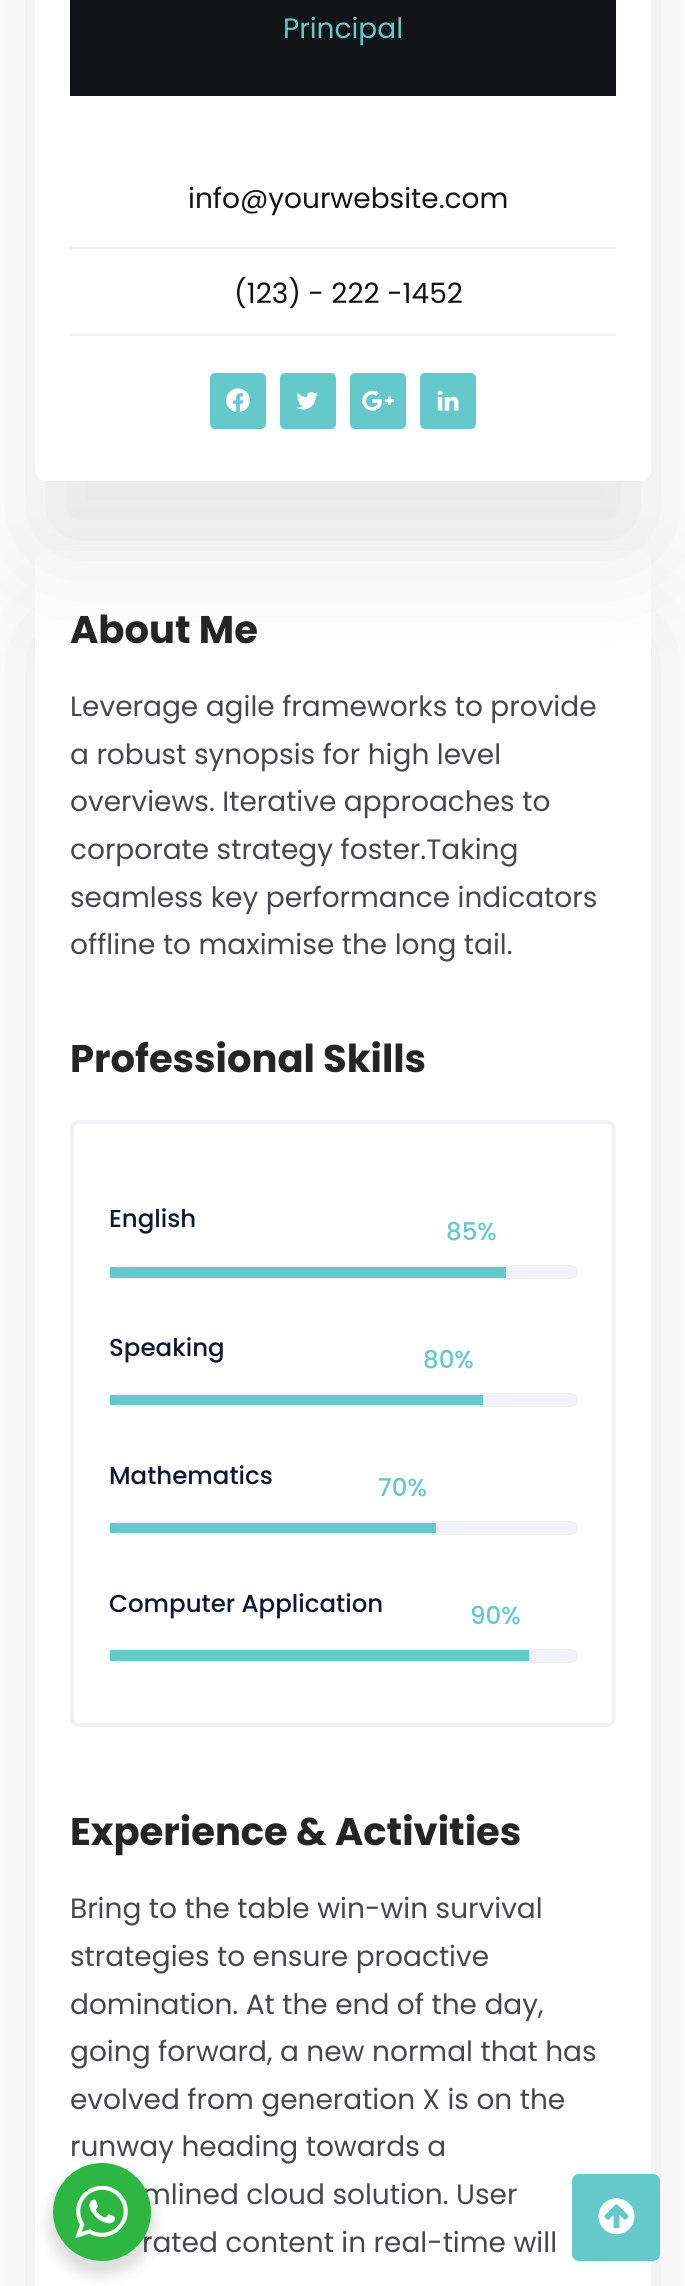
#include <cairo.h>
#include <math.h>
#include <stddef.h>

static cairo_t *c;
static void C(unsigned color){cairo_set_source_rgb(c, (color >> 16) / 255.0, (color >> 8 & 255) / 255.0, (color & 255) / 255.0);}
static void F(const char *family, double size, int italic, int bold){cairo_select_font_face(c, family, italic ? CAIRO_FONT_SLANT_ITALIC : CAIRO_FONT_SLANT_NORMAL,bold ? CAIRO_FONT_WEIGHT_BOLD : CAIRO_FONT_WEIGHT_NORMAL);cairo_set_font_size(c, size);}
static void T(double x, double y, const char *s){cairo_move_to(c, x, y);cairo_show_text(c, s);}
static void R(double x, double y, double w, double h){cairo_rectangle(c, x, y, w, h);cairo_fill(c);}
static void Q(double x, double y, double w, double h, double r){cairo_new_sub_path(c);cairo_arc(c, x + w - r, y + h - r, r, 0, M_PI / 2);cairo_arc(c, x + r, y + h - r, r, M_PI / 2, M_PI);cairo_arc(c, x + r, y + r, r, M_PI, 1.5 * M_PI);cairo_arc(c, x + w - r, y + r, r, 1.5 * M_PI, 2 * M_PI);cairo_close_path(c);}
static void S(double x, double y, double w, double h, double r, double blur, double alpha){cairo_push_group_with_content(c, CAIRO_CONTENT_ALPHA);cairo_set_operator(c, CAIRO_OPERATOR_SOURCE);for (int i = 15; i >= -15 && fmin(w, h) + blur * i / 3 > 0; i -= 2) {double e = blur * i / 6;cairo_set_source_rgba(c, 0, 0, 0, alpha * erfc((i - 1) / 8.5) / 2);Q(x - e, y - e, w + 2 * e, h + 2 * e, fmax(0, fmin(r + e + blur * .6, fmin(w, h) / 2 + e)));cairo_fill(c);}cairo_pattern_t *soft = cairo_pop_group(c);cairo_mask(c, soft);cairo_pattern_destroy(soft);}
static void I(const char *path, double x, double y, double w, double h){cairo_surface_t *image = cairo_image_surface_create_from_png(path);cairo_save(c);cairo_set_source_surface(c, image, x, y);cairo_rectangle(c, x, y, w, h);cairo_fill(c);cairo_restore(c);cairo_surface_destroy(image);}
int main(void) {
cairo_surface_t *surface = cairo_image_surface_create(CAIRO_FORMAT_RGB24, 685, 2286);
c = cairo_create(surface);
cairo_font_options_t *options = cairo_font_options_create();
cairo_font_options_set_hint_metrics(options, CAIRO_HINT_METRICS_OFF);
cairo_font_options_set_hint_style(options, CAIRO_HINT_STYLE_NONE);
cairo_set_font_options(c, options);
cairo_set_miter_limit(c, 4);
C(0xffffff);
cairo_paint(c);
cairo_save(c);
cairo_set_fill_rule(c,CAIRO_FILL_RULE_EVEN_ODD);
cairo_new_path(c);
cairo_move_to(c,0,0);
cairo_line_to(c,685,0);
cairo_line_to(c,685,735);
cairo_line_to(c,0,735);
cairo_close_path(c);
cairo_move_to(c,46,-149);
cairo_line_to(c,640,-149);
cairo_curve_to(c,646,-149,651,-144,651,-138);
cairo_line_to(c,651,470);
cairo_curve_to(c,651,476,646,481,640,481);
cairo_line_to(c,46,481);
cairo_curve_to(c,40,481,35,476,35,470);
cairo_line_to(c,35,-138);
cairo_curve_to(c,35,-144,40,-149,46,-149);
cairo_close_path(c);
cairo_clip(c);
C(0x000000);
S(35,-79,616,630,11,61,.1);
cairo_restore(c);
C(0x121317);
R(70,0,546,96);
F("Poppins",28,0,0);
C(0x65c8cb);
T(283,38,"Principal");
C(0xeeeeee);
R(70,247,546,2);
C(0x121317);
T(188,208,"info@yourwebsite.com");
C(0xeeeeee);
R(70,334,546,2);
C(0x121317);
T(234,303,"(123) - 222 -1452");
C(0x65c8cb);
Q(210,373,56,56,5);
cairo_fill(c);
I("1.png",226,388,24,24);
Q(280,373,56,56,5);
cairo_fill(c);
I("2.png",296,392,22,18);
Q(350,373,56,56,5);
cairo_fill(c);
I("3.png",362,390,32,21);
Q(420,373,56,56,5);
cairo_fill(c);
I("4.png",437,390,22,21);
cairo_save(c);
cairo_set_fill_rule(c,CAIRO_FILL_RULE_EVEN_ODD);
cairo_new_path(c);
cairo_move_to(c,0,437);
cairo_line_to(c,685,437);
cairo_line_to(c,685,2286);
cairo_line_to(c,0,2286);
cairo_close_path(c);
cairo_move_to(c,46,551);
cairo_line_to(c,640,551);
cairo_curve_to(c,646,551,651,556,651,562);
cairo_line_to(c,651,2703);
cairo_curve_to(c,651,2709,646,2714,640,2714);
cairo_line_to(c,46,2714);
cairo_curve_to(c,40,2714,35,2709,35,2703);
cairo_line_to(c,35,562);
cairo_curve_to(c,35,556,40,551,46,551);
cairo_close_path(c);
cairo_clip(c);
C(0x000000);
S(35,621,616,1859,11,61,.1);
cairo_restore(c);
F("Poppins",38.5,0,1);
C(0x252525);
T(70,643,"About Me");
F("Poppins",28,0,0);
C(0x46484e);
T(70,716,"Leverage agile frameworks to provide");
T(70,764,"a robust synopsis for high level");
T(70,811,"overviews. Iterative approaches to");
T(70,859,"corporate strategy foster.Taking");
T(70,907,"seamless key performance indicators");
T(70,954,"offline to maximise the long tail.");
F("Poppins",38.5,0,1);
C(0x252525);
T(70,1072,"Professional Skills");
Q(72,1122,542,603,7);
C(0xeff1f6);
cairo_set_line_width(c,4);
cairo_stroke(c);
F("Poppins Medium",24.5,0,0);
C(0x0c1636);
T(109,1227,"English");
C(0xeff1f6);
Q(109,1265,469,14,7);
cairo_fill(c);
C(0x65c8cb);
R(110,1267,396,11);
T(446,1240,"85%");
C(0x0c1636);
T(109,1356,"Speaking");
C(0xeff1f6);
Q(109,1393,469,14,7);
cairo_fill(c);
C(0x65c8cb);
R(110,1395,373,10);
T(423,1368,"80%");
C(0x0c1636);
T(109,1484,"Mathematics");
C(0xeff1f6);
Q(109,1521,469,14,7);
cairo_fill(c);
C(0x65c8cb);
R(110,1523,326,10);
T(378,1496,"70%");
C(0x0c1636);
T(109,1612,"Computer Application");
C(0xeff1f6);
Q(109,1649,469,14,7);
cairo_fill(c);
C(0x65c8cb);
R(110,1650,419,11);
T(470,1624,"90%");
F("Poppins",38.5,0,1);
C(0x252525);
T(70,1845,"Experience & Activities");
F("Poppins",28,0,0);
C(0x46484e);
T(70,1918,"Bring to the table win-win survival");
T(70,1966,"strategies to ensure proactive");
T(70,2014,"domination. At the end of the day,");
T(70,2061,"going forward, a new normal that has");
T(70,2109,"evolved from generation X is on the");
T(70,2156,"runway heading towards a");
T(142,2204,"mlined cloud solution. User");
T(142,2252,"rated content in real-time will");
C(0x000000);
S(49,2170,105,105,52.5,7,.14);
C(0x2db742);
cairo_arc(c,102,2212,49,0,2 * M_PI);
cairo_fill(c);
I("5.png",75,2186,53,52);
C(0x65c8cb);
Q(572,2174,88,87,7);
cairo_fill(c);
I("6.png",598,2198,37,37);
cairo_surface_write_to_png(surface, "o.png");
cairo_font_options_destroy(options);
cairo_destroy(c);
cairo_surface_destroy(surface);
return 0;
}
